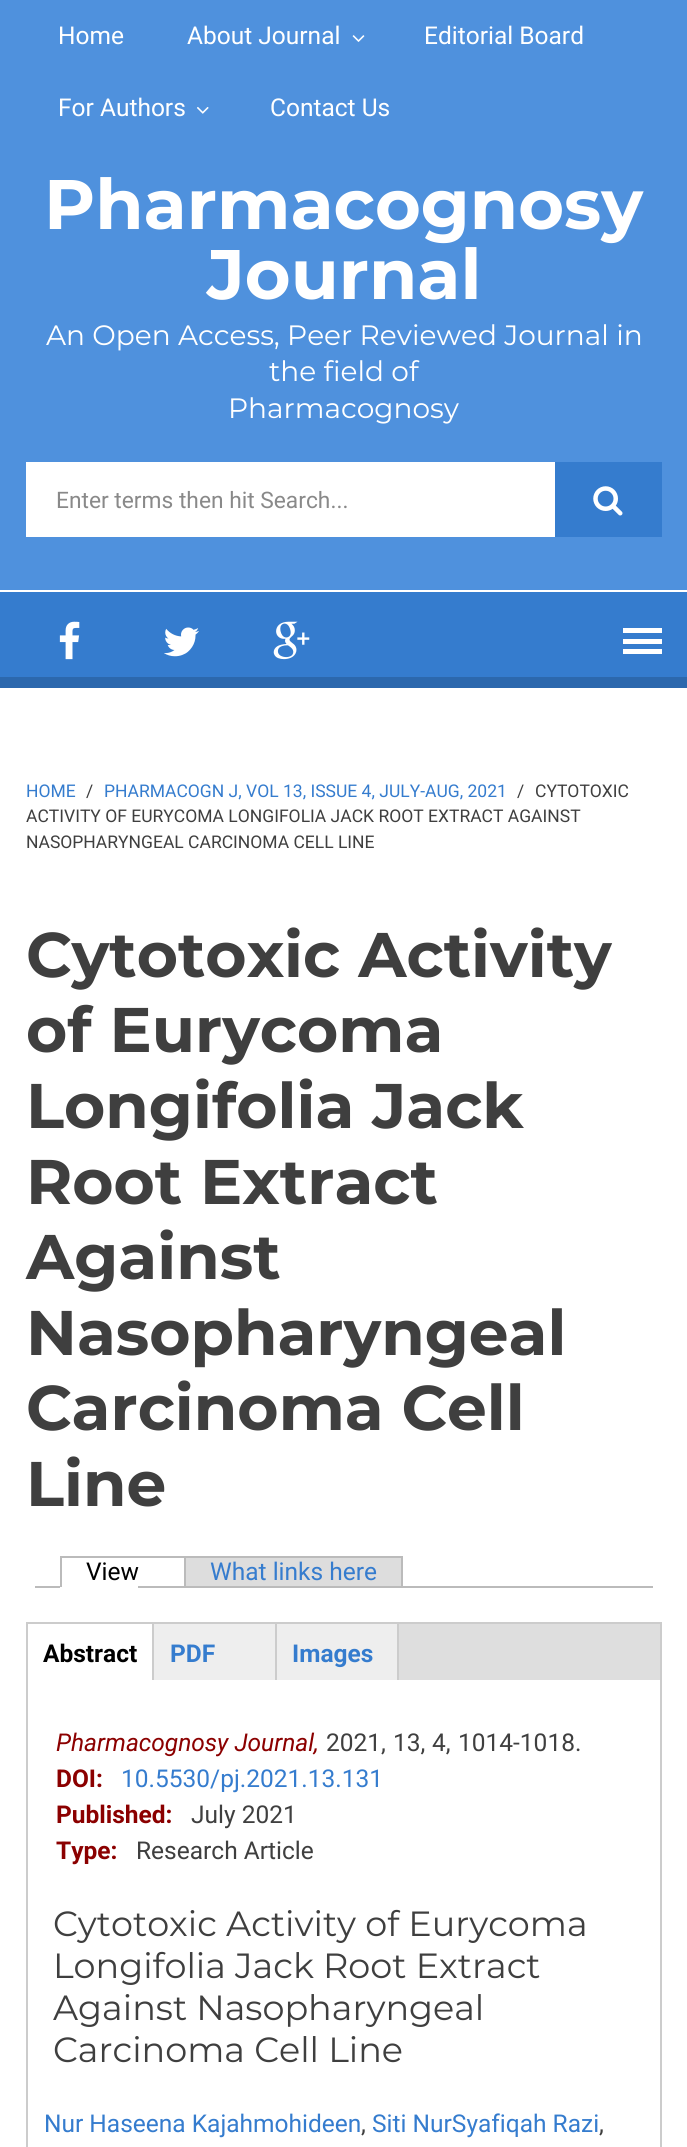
#include <cairo.h>
#include <math.h>
#include <stddef.h>

static cairo_t *c;
static void C(unsigned color){cairo_set_source_rgb(c, (color >> 16) / 255.0, (color >> 8 & 255) / 255.0, (color & 255) / 255.0);}
static void F(const char *family, double size, int italic, int bold){cairo_select_font_face(c, family, italic ? CAIRO_FONT_SLANT_ITALIC : CAIRO_FONT_SLANT_NORMAL,bold ? CAIRO_FONT_WEIGHT_BOLD : CAIRO_FONT_WEIGHT_NORMAL);cairo_set_font_size(c, size);}
static void T(double x, double y, const char *s){cairo_move_to(c, x, y);cairo_show_text(c, s);}
static void R(double x, double y, double w, double h){cairo_rectangle(c, x, y, w, h);cairo_fill(c);}
static void I(const char *path, double x, double y, double w, double h){cairo_surface_t *image = cairo_image_surface_create_from_png(path);cairo_save(c);cairo_set_source_surface(c, image, x, y);cairo_rectangle(c, x, y, w, h);cairo_fill(c);cairo_restore(c);cairo_surface_destroy(image);}
int main(void) {
cairo_surface_t *surface = cairo_image_surface_create(CAIRO_FORMAT_RGB24, 687, 2147);
c = cairo_create(surface);
cairo_font_options_t *options = cairo_font_options_create();
cairo_font_options_set_hint_metrics(options, CAIRO_HINT_METRICS_OFF);
cairo_font_options_set_hint_style(options, CAIRO_HINT_STYLE_NONE);
cairo_set_font_options(c, options);
cairo_set_miter_limit(c, 4);
C(0x4f91dd);
cairo_paint(c);
F("Roboto",24.5,0,0);
C(0xffffff);
T(58,44,"Home");
T(187,44,"About Journal");
I("1.png",352,35,13,7);
T(424,44,"Editorial Board");
T(58,116,"For Authors");
I("2.png",197,107,12,7);
T(270,116,"Contact Us");
R(0,590,687,2);
F("Montserrat",70,0,1);
T(44,229,"Pharmacognosy");
T(207,299,"Journal");
F("Montserrat",28,0,0);
T(46,345,"An Open Access, Peer Reviewed Journal in");
T(269,381,"the field of");
T(228,418,"Pharmacognosy");
R(26,462,529,75);
F("Roboto",22.75,0,0);
C(0x898989);
T(56,508,"Enter terms then hit Search...");
C(0x357cce);
R(555,462,107,75);
I("3.png",593,486,30,30);
R(0,592,687,85);
C(0x2c68ad);
R(0,677,687,11);
I("4.png",59,621,21,39);
I("5.png",164,627,35,30);
I("6.png",273,621,37,39);
C(0xffffff);
R(623,628,39,5);
R(623,639,39,5);
R(623,649,39,5);
R(0,688,687,1459);
F("Roboto",17.5,0,0);
C(0x357cce);
T(26,797,"HOME");
C(0x3f3f3f);
T(86,797,"/");
C(0x357cce);
T(104,797,"PHARMACOGN J, VOL 13, ISSUE 4, JULY-AUG, 2021");
C(0x3f3f3f);
T(517,797,"/");
T(535,797,"CYTOTOXIC");
T(26,822,"ACTIVITY OF EURYCOMA LONGIFOLIA JACK ROOT EXTRACT AGAINST");
T(26,848,"NASOPHARYNGEAL CARCINOMA CELL LINE");
F("Montserrat",63,0,1);
T(26,977,"Cytotoxic Activity");
T(26,1052,"of Eurycoma");
T(26,1128,"Longifolia Jack");
T(26,1204,"Root Extract");
T(26,1279,"Against");
T(26,1355,"Nasopharyngeal");
T(26,1430,"Carcinoma Cell");
T(26,1506,"Line");
C(0xbbbbbb);
R(35,1586,618,2);
F("Roboto",24.5,0,0);
C(0x000000);
T(86,1580,"View");
C(0xbbbbbb);
R(60,1556,343,2);
C(0xffffff);
R(60,1586,78,2);
C(0xbbbbbb);
R(60,1556,2,31);
C(0xdddddd);
R(186,1558,215,28);
C(0x357cce);
T(210,1580,"What links here");
C(0xbbbbbb);
R(401,1556,2,30);
R(184,1556,2,30);
cairo_rectangle(c,27,1623,634,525);
C(0xcccccc);
cairo_stroke(c);
C(0xdedede);
R(399,1624,261,56);
C(0xcccccc);
R(152,1624,2,56);
F("Roboto",24.5,0,1);
C(0x000000);
T(43,1662,"Abstract");
C(0xeeeeee);
R(154,1624,121,56);
C(0xcccccc);
R(275,1624,2,56);
C(0x357cce);
T(170,1662,"PDF");
C(0xeeeeee);
R(277,1624,120,56);
C(0xcccccc);
R(397,1624,2,56);
C(0x357cce);
T(292,1662,"Images");
F("Roboto",24.5,1,0);
C(0x8b0000);
T(56,1751,"Pharmacognosy Journal,");
F("Roboto",24.5,0,0);
C(0x3f3f3f);
T(326,1751,"2021,");
T(393,1751,"13,");
T(432,1751,"4,");
T(458,1751,"1014-1018.");
F("Roboto",24.5,0,1);
C(0x8b0000);
T(56,1787,"DOI:");
F("Roboto",24.5,0,0);
C(0x357cce);
T(121,1787,"10.5530/pj.2021.13.131");
F("Roboto",24.5,0,1);
C(0x8b0000);
T(56,1823,"Published:");
F("Roboto",24.5,0,0);
C(0x3f3f3f);
T(191,1823,"July 2021");
F("Roboto",24.5,0,1);
C(0x8b0000);
T(56,1859,"Type:");
F("Roboto",24.5,0,0);
C(0x3f3f3f);
T(136,1859,"Research Article");
F("Montserrat",35,0,0);
T(53,1936,"Cytotoxic Activity of Eurycoma");
T(53,1978,"Longifolia Jack Root Extract");
T(53,2020,"Against Nasopharyngeal");
T(53,2062,"Carcinoma Cell Line");
F("Roboto",24.5,0,0);
C(0x357cce);
T(44,2132,"Nur Haseena Kajahmohideen");
C(0x3f3f3f);
T(361,2132,",");
C(0x357cce);
T(372,2132,"Siti NurSyafiqah Razi");
C(0x3f3f3f);
T(599,2132,",");
cairo_surface_write_to_png(surface, "o.png");
cairo_font_options_destroy(options);
cairo_destroy(c);
cairo_surface_destroy(surface);
return 0;
}
